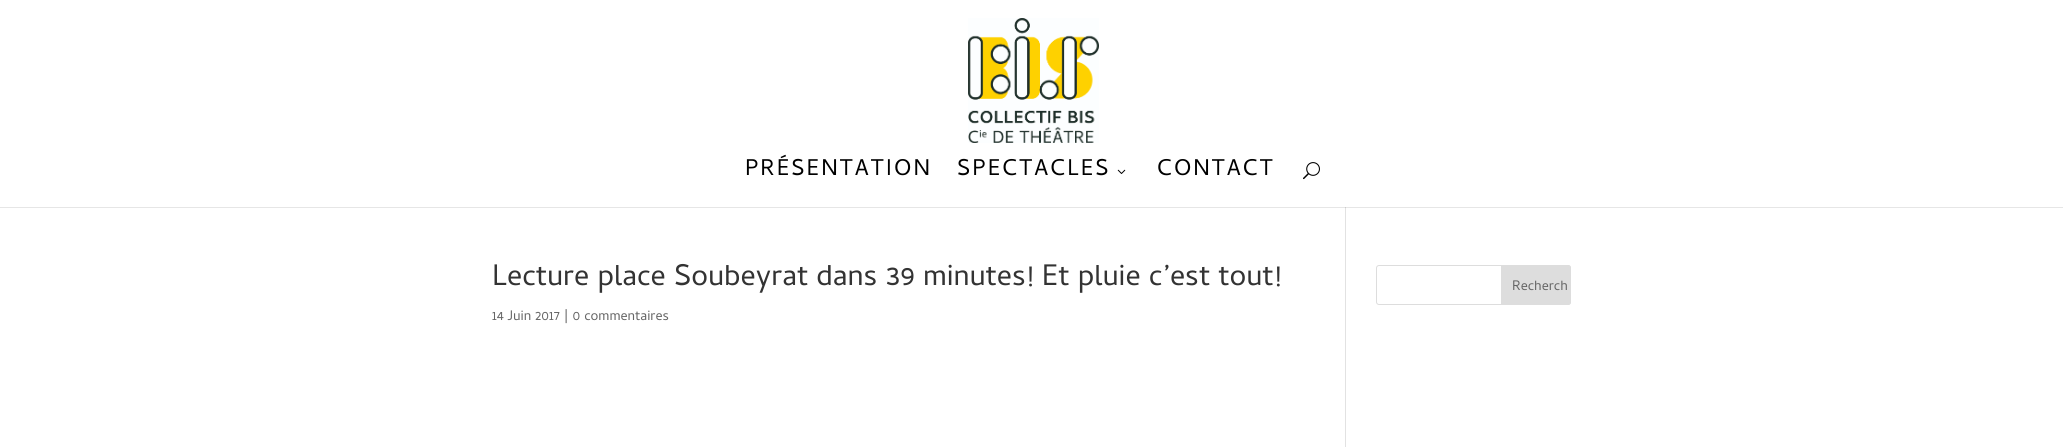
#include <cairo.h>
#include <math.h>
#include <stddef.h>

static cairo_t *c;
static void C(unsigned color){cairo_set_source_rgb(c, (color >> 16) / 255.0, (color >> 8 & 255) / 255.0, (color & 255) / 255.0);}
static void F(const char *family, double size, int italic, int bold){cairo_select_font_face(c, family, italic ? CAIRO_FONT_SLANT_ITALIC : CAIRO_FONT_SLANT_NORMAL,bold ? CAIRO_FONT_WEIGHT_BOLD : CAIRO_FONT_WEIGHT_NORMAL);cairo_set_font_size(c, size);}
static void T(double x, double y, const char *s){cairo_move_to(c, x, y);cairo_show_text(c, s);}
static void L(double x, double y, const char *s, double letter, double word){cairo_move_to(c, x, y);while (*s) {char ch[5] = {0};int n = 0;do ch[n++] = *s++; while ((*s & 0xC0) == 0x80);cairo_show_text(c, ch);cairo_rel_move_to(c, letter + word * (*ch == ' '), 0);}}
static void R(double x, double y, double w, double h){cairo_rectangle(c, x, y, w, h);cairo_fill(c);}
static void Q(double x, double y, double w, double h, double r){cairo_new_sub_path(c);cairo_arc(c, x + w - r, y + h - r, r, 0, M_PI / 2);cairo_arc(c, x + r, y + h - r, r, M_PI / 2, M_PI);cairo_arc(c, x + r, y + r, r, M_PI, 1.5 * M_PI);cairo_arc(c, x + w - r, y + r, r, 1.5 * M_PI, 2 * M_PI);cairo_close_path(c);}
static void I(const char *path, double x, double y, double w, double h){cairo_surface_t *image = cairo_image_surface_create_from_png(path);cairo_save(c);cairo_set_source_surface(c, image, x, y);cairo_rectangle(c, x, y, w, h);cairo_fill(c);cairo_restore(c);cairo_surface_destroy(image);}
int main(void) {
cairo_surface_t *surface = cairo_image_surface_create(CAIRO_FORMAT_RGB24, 2063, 447);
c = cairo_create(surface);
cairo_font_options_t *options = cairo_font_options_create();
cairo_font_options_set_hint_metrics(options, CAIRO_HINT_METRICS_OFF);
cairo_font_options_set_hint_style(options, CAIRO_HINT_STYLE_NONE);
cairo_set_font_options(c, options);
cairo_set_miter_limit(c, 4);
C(0xffffff);
cairo_paint(c);
C(0xe6e6e6);
R(0,207,2063,1);
I("1.png",968,18,131,125);
F("Cambay",23,0,0);
C(0x000000);
L(745,175,"PRÉSENTATION",2,0);
L(957,175,"SPECTACLES",2,0);
I("2.png",1117,169,9,5);
L(1157,175,"CONTACT",2,0);
I("3.png",1303,162,17,18);
C(0xe2e2e2);
R(1345,207,1,240);
C(0xcbcbcb);
R(1345,207,1,1);
F("Cambay",30,0,0);
C(0x333333);
T(492,285,"Lecture place Soubeyrat dans 39 minutes! Et pluie c’est tout!");
F("Cambay",14,0,0);
C(0x666666);
T(492,320,"14 Juin 2017 | 0 commentaires");
Q(1376.5,265.5,194,39,2.5);
C(0xdddddd);
cairo_set_line_width(c,1);
cairo_stroke(c);
cairo_new_path(c);
cairo_move_to(c,1501.5,265.5);
cairo_line_to(c,1568,265.5);
cairo_curve_to(c,1569.5,265.5,1570.5,266.5,1570.5,268);
cairo_line_to(c,1570.5,302);
cairo_curve_to(c,1570.5,303.5,1569.5,304.5,1568,304.5);
cairo_line_to(c,1501.5,304.5);
cairo_close_path(c);
cairo_fill_preserve(c);
cairo_stroke(c);
C(0x666666);
T(1512,290,"Recherch");
cairo_surface_write_to_png(surface, "o.png");
cairo_font_options_destroy(options);
cairo_destroy(c);
cairo_surface_destroy(surface);
return 0;
}
